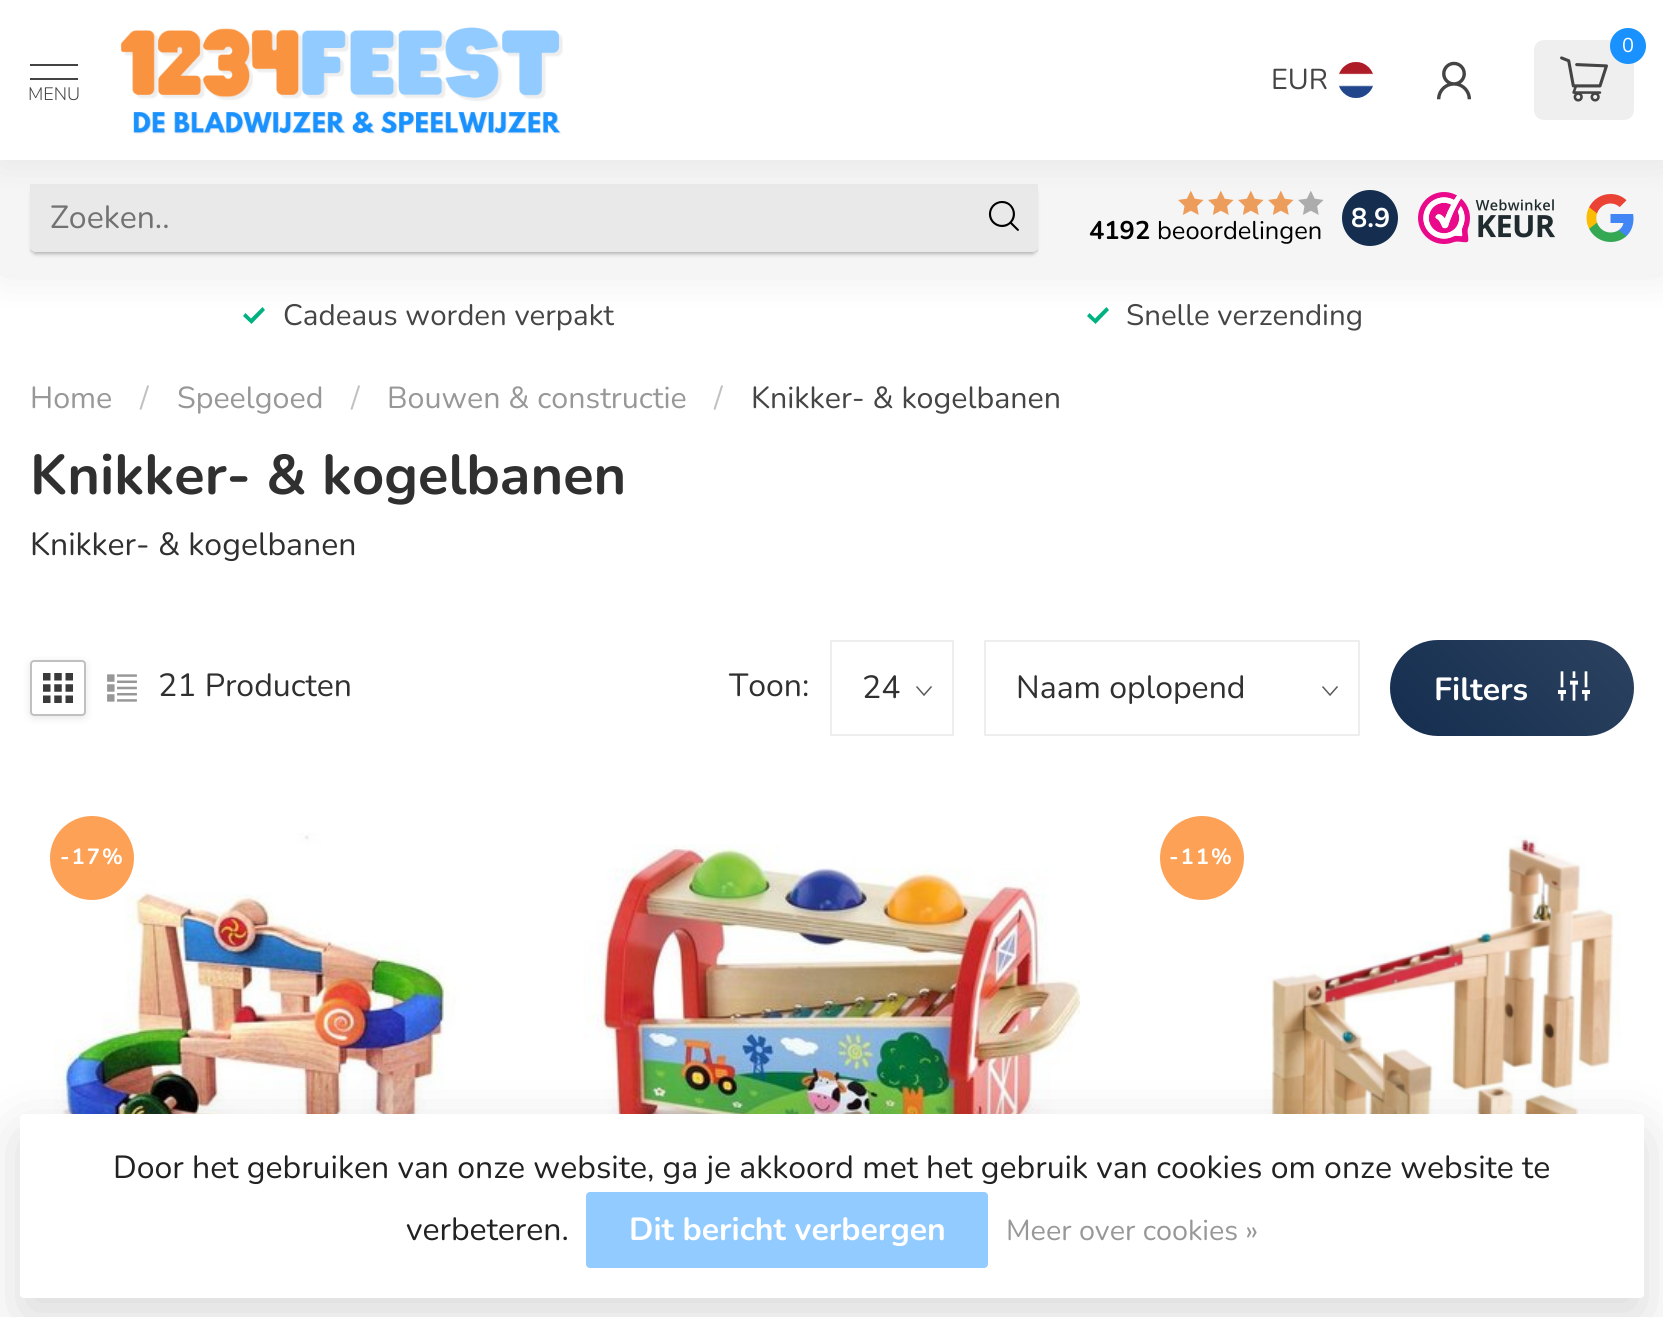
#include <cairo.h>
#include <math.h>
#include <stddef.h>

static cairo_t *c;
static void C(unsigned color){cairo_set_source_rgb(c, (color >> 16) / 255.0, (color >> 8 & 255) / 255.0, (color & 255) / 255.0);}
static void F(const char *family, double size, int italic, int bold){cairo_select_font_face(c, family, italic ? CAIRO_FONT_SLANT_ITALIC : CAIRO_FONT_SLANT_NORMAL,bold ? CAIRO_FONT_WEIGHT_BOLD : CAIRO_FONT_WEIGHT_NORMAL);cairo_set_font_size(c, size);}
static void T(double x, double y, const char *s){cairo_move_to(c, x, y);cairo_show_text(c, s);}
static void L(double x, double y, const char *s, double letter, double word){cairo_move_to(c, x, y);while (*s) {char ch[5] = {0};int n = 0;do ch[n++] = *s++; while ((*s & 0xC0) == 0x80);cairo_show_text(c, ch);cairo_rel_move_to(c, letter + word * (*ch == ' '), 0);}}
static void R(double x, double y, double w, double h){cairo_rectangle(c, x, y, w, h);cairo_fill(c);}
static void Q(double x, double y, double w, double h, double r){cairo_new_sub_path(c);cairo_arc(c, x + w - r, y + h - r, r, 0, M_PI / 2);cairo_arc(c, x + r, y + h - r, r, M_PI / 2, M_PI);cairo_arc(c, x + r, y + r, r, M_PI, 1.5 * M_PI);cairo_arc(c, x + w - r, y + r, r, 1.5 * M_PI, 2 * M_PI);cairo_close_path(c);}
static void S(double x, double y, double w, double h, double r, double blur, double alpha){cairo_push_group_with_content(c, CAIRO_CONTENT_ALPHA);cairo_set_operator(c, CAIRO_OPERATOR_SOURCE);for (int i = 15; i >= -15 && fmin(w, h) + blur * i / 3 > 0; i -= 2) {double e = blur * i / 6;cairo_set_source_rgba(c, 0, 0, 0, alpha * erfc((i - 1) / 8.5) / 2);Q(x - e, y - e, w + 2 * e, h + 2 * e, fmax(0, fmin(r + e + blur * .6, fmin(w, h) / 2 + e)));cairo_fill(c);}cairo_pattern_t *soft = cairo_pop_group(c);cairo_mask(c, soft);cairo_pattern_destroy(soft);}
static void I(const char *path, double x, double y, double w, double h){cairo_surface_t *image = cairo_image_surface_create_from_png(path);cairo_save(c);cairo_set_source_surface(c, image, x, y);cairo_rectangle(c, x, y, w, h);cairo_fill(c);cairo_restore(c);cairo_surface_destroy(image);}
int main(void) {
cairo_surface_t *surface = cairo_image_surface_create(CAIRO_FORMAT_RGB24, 1663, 1317);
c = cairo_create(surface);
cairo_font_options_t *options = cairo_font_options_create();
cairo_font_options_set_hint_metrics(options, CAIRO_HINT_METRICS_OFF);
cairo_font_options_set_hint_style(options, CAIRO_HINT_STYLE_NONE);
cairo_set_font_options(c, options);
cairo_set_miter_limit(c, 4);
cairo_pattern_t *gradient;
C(0xffffff);
cairo_paint(c);
C(0x00b282);
cairo_new_path(c);
cairo_move_to(c,251.5,324);
cairo_line_to(c,243,316);
cairo_line_to(c,245.5,313);
cairo_line_to(c,251,318.5);
cairo_line_to(c,262.5,307);
cairo_line_to(c,265,310);
cairo_close_path(c);
cairo_fill(c);
cairo_new_path(c);
cairo_move_to(c,1095.5,324);
cairo_line_to(c,1087,316);
cairo_line_to(c,1089.5,313);
cairo_line_to(c,1095,318.5);
cairo_line_to(c,1106.5,307);
cairo_line_to(c,1109,310);
cairo_close_path(c);
cairo_fill(c);
C(0x000000);
S(0,160,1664,116,0,22,.08);
C(0xf5f5f5);
R(0,160,1663,116);
cairo_save(c);
cairo_set_fill_rule(c,CAIRO_FILL_RULE_EVEN_ODD);
cairo_new_path(c);
cairo_move_to(c,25,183);
cairo_line_to(c,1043,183);
cairo_line_to(c,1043,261);
cairo_line_to(c,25,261);
cairo_close_path(c);
cairo_move_to(c,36,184);
cairo_line_to(c,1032,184);
cairo_curve_to(c,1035.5,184,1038,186.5,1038,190);
cairo_line_to(c,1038,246);
cairo_curve_to(c,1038,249.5,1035.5,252,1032,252);
cairo_line_to(c,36,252);
cairo_curve_to(c,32.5,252,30,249.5,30,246);
cairo_line_to(c,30,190);
cairo_curve_to(c,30,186.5,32.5,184,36,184);
cairo_close_path(c);
cairo_clip(c);
C(0x9b9b9b);
S(32,190,1004,64,4,2,.75);
cairo_restore(c);
cairo_set_source_rgba(c,0,0,0,0.05);
R(30,184,1008,68);
I("5.png",988,201,31,30);
C(0x152e4f);
cairo_arc(c,1370,218,28,0,2 * M_PI);
cairo_fill(c);
I("6.png",1178,190,26,25);
I("6.png",1208,190,26,25);
I("6.png",1238,190,26,25);
I("6.png",1268,190,26,25);
I("7.png",1298,191,26,24);
I("8.png",1418,192,137,52);
I("9.png",1586,194,48,48);
C(0x000000);
S(0,0,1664,160,0,20,.07);
C(0xffffff);
R(0,0,1663,160);
C(0xefefef);
Q(1534,40,100,80,10);
cairo_fill(c);
C(0x1992ff);
cairo_arc(c,1628,46,18,0,2 * M_PI);
cairo_fill(c);
F("Nunito",20,0,0);
C(0xffffff);
T(1622,52,"0");
I("1.png",1560,56,48,46);
F("Nunito",28.75,0,0);
C(0x454545);
T(1271,89,"EUR");
I("2.png",1338,62,35,36);
I("3.png",1437,61,34,39);
C(0x444444);
R(30,64,48,2);
R(30,78,48,2);
F("Nunito Light",18,0,0);
C(0x454545);
T(28,100,"MENU");
I("4.png",120,27,443,107);
F("Nunito",32,0,0);
C(0x727272);
T(50,228,"Zoeken..");
F("Nunito",27,0,1);
C(0xffffff);
T(1351,227,"8.9");
F("Nunito",25.5,0,1);
C(0x000000);
T(1089,239,"4192");
F("Nunito",25.5,0,0);
T(1157,239,"beoordelingen");
F("Nunito",29.5,0,0);
C(0x454545);
T(283,325,"Cadeaus worden verpakt");
T(1126,325,"Snelle verzending");
F("Nunito",30.4,0,0);
C(0x989898);
T(30,408,"Home");
C(0xc1c1c1);
T(140,408,"/");
C(0x989898);
T(177,408,"Speelgoed");
C(0xc1c1c1);
T(351,408,"/");
C(0x989898);
T(387,408,"Bouwen & constructie");
C(0xc1c1c1);
T(714,408,"/");
C(0x454545);
T(751,408,"Knikker- & kogelbanen");
F("Nunito",56,0,1);
C(0x303030);
T(30,494,"Knikker- & kogelbanen");
F("Nunito",32,0,0);
T(30,555,"Knikker- & kogelbanen");
cairo_save(c);
cairo_set_fill_rule(c,CAIRO_FILL_RULE_EVEN_ODD);
cairo_new_path(c);
cairo_move_to(c,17,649);
cairo_line_to(c,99,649);
cairo_line_to(c,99,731);
cairo_line_to(c,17,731);
cairo_close_path(c);
cairo_move_to(c,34,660);
cairo_line_to(c,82,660);
cairo_curve_to(c,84,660,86,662,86,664);
cairo_line_to(c,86,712);
cairo_curve_to(c,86,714,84,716,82,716);
cairo_line_to(c,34,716);
cairo_curve_to(c,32,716,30,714,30,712);
cairo_line_to(c,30,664);
cairo_curve_to(c,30,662,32,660,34,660);
cairo_close_path(c);
cairo_clip(c);
C(0x000000);
S(30,662,56,56,4,4,.1);
cairo_restore(c);
Q(31,661,54,54,3);
C(0xc0c0c0);
cairo_stroke(c);
I("10.png",43,673,30,30);
I("11.png",107,674,30,28);
C(0x303030);
T(158,696,"21 Producten");
T(729,696,"Toon:");
cairo_new_path(c);
cairo_move_to(c,931.5,686.5);
cairo_line_to(c,924,695);
cairo_line_to(c,916.5,686.5);
C(0x595959);
cairo_set_line_width(c,1.5);
cairo_stroke(c);
cairo_rectangle(c,831,641,122,94);
C(0xeeeeee);
cairo_set_line_width(c,2);
cairo_stroke(c);
C(0x303030);
T(862,698,"24");
cairo_new_path(c);
cairo_move_to(c,1337.5,686.5);
cairo_line_to(c,1330,695);
cairo_line_to(c,1322.5,686.5);
C(0x595959);
cairo_set_line_width(c,1.5);
cairo_stroke(c);
cairo_rectangle(c,985,641,374,94);
C(0xeeeeee);
cairo_set_line_width(c,2);
cairo_stroke(c);
C(0x303030);
T(1016,698,"Naam oplopend");
gradient = cairo_pattern_create_linear(1427,773,1597,603);
cairo_pattern_add_color_stop_rgba(gradient,0,0.082,0.18,0.31,1);
cairo_pattern_add_color_stop_rgba(gradient,1,0.173,0.259,0.376,1);
cairo_set_source(c,gradient);
cairo_pattern_destroy(gradient);
Q(1390,640,244,96,48);
cairo_fill(c);
F("Nunito",32,0,1);
C(0xffffff);
T(1434,700,"Filters");
I("12.png",1558,671,32,30);
I("13.png",54,833,453,281);
C(0xfda156);
cairo_arc(c,92,858,42,0,2 * M_PI);
cairo_fill(c);
F("Nunito",22,0,1);
C(0xffffff);
L(60,864,"-17%",2,0);
I("14.png",584,844,496,270);
I("15.png",1148,835,473,279);
C(0xfda156);
cairo_arc(c,1202,858,42,0,2 * M_PI);
cairo_fill(c);
C(0xffffff);
L(1169,864,"-11%",2,0);
C(0x000000);
S(20,1134,1624,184,4,30,.15);
C(0xffffff);
Q(20,1114,1624,184,4);
cairo_fill(c);
F("Nunito",32,0,0);
C(0x222222);
T(113,1178,"Door het gebruiken van onze website, ga je akkoord met het gebruik van cookies om onze website te");
T(406,1240,"verbeteren.");
C(0x92cbff);
Q(586,1192,402,76,4);
cairo_fill(c);
F("Nunito",32,0,1);
C(0xffffff);
T(629,1240,"Dit bericht verbergen");
F("Nunito",28.75,0,0);
C(0x989898);
T(1006,1240,"Meer over cookies »");
cairo_surface_write_to_png(surface, "o.png");
cairo_font_options_destroy(options);
cairo_destroy(c);
cairo_surface_destroy(surface);
return 0;
}
